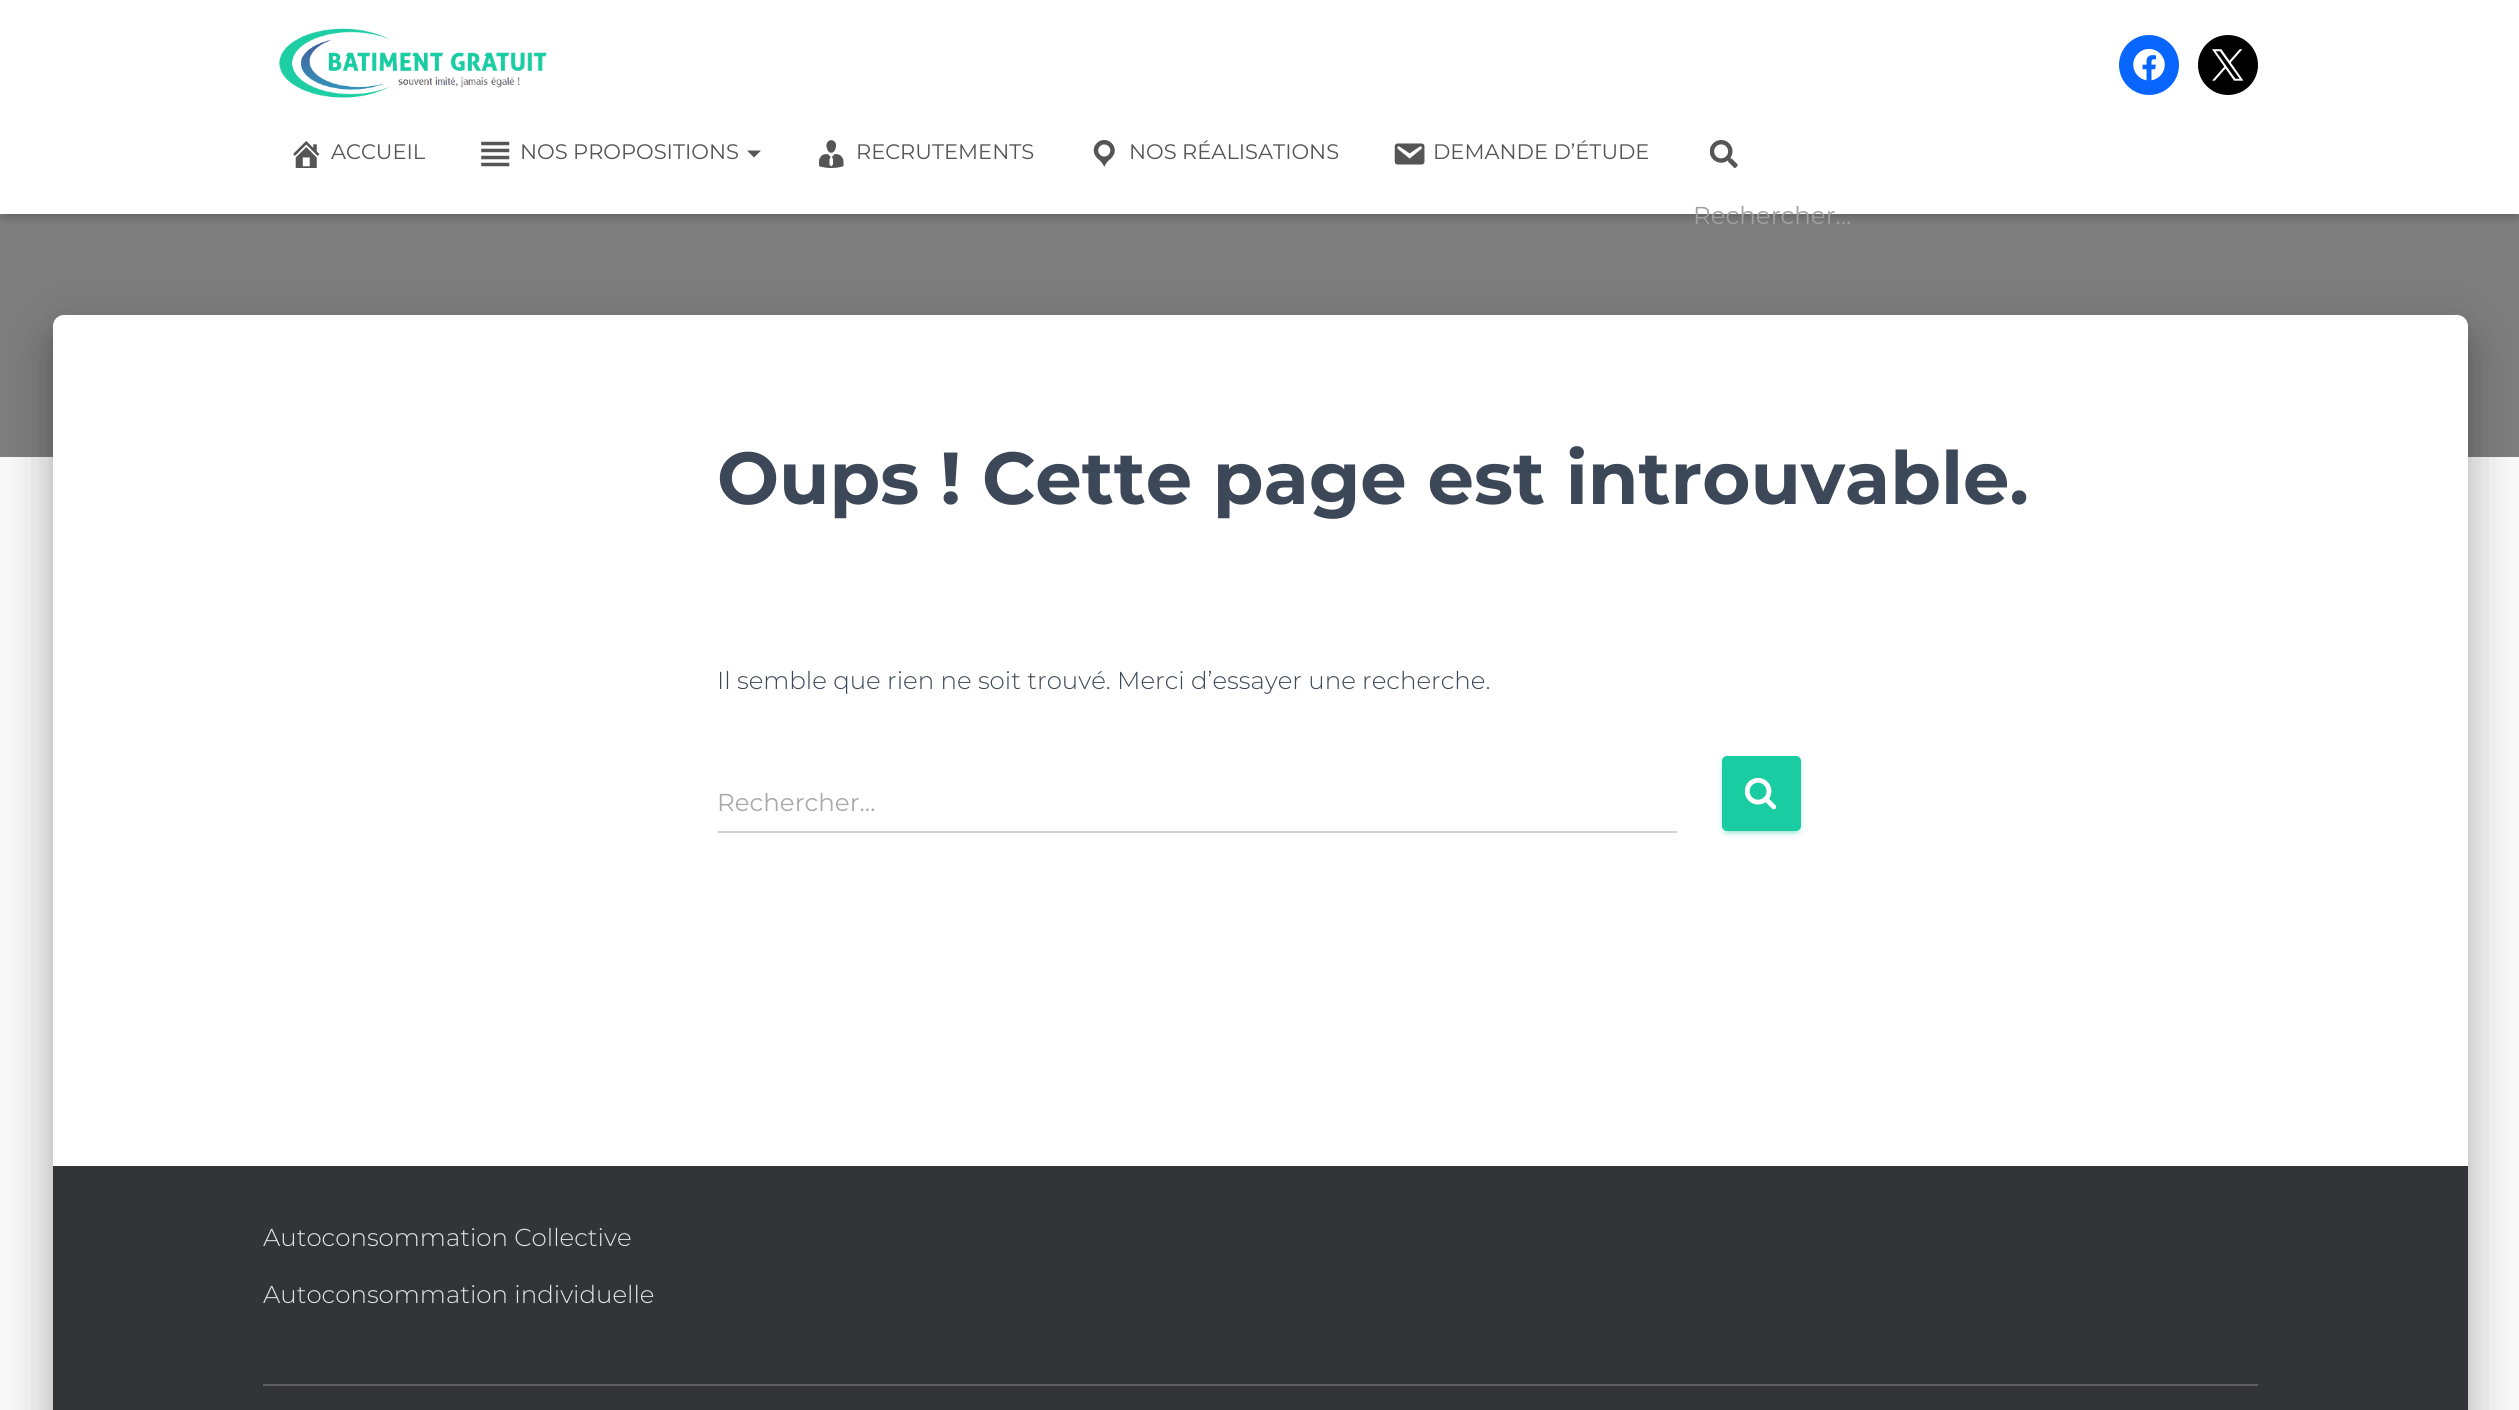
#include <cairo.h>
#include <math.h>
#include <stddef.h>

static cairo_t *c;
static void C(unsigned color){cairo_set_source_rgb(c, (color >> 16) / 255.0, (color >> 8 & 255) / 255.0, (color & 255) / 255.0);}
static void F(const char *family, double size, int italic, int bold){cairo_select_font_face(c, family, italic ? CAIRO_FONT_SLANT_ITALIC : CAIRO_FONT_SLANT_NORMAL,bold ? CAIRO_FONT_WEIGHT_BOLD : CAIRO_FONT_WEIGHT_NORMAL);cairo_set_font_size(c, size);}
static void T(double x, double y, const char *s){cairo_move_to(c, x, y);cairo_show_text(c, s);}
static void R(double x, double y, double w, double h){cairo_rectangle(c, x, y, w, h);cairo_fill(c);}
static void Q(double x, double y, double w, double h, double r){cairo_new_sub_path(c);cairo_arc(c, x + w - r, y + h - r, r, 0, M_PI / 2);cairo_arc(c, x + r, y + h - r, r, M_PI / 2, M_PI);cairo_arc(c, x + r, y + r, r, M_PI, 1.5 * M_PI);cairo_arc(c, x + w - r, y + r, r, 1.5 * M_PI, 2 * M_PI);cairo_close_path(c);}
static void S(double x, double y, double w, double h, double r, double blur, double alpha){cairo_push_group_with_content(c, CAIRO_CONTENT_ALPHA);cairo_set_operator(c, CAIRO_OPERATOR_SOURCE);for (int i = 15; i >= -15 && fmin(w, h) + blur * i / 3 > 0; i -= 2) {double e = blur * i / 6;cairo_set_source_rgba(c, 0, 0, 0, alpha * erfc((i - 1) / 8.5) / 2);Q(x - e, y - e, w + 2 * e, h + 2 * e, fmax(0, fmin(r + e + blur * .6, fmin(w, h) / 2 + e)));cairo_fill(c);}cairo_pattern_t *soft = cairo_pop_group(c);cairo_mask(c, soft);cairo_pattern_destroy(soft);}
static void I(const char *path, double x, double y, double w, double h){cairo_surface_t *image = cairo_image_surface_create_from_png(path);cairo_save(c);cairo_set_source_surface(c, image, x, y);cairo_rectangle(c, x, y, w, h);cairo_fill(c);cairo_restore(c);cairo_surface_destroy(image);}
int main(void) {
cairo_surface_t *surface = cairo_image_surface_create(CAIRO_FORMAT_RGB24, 2519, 1410);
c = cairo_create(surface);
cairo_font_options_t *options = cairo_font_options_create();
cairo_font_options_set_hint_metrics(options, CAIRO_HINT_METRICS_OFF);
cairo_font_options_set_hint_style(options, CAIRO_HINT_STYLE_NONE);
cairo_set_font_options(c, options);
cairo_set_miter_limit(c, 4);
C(0xf9f9f9);
cairo_paint(c);
C(0x7e7e7e);
R(0,214,2519,243);
C(0x000000);
S(4,11,2513,206,0,4.5,.1);
S(0,2,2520,213,0,9,.12);
S(11,12,2499,193,0,9,.42);
C(0xffffff);
R(0,0,2519,214);
I("1.png",279,28,268,70);
C(0x0866ff);
cairo_arc(c,2149,65,30,0,2 * M_PI);
cairo_fill(c);
I("2.png",2133,48,32,33);
C(0x000000);
cairo_arc(c,2228,65,30,0,2 * M_PI);
cairo_fill(c);
I("3.png",2212,49,32,32);
I("4.png",293,141,27,27);
F("Montserrat",21,0,0);
C(0x555555);
T(331,159,"ACCUEIL");
I("5.png",481,141,29,26);
T(520,159,"NOS PROPOSITIONS");
cairo_new_path(c);
cairo_move_to(c,747,150.5);
cairo_line_to(c,761,150.5);
cairo_line_to(c,754,157.5);
cairo_close_path(c);
cairo_fill(c);
I("6.png",819,140,25,28);
T(856,159,"RECRUTEMENTS");
I("7.png",1093,140,22,27);
T(1129,159,"NOS RÉALISATIONS");
I("8.png",1394,143,31,22);
T(1433,159,"DEMANDE D’ÉTUDE");
I("9.png",1710,140,28,28);
F("Montserrat",24.5,0,0);
C(0xa0a0a0);
T(1693,224,"Rechercher…");
C(0x000000);
S(61,338,2398,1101,2,9,.2);
S(44,317,2432,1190,19,26,.12);
S(49,340,2422,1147,14,21,.14);
C(0xffffff);
cairo_new_path(c);
cairo_move_to(c,64,315);
cairo_line_to(c,2457,315);
cairo_curve_to(c,2463,315,2468,320,2468,326);
cairo_line_to(c,2468,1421);
cairo_line_to(c,53,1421);
cairo_line_to(c,53,326);
cairo_curve_to(c,53,320,58,315,64,315);
cairo_close_path(c);
cairo_fill(c);
F("Montserrat",73.5,0,1);
C(0x3c4858);
T(717,504,"Oups ! Cette page est introuvable.");
F("Montserrat Light",24.5,0,0);
T(717,689,"Il semble que rien ne soit trouvé. Merci d’essayer une recherche.");
F("Montserrat",24.5,0,0);
C(0xaaaaaa);
T(717,811,"Rechercher…");
C(0xd2d2d2);
R(718,831,959,2);
C(0x1acca2);
S(1722,758,79,75,5,4.5,.12);
S(1726,765,71,68,2,1,.2);
S(1722,760,79,75,5,2,.14);
C(0x1acca2);
Q(1722,756,79,75,5);
cairo_fill(c);
I("10.png",1745,777,31,33);
C(0x323437);
R(53,1166,2415,244);
F("Montserrat Light",24.5,0,0);
C(0xe2e3e3);
T(263,1246,"Autoconsommation Collective");
T(263,1303,"Autoconsommation individuelle");
C(0x5e5e5e);
R(263,1384,1995,2);
cairo_surface_write_to_png(surface, "o.png");
cairo_font_options_destroy(options);
cairo_destroy(c);
cairo_surface_destroy(surface);
return 0;
}
